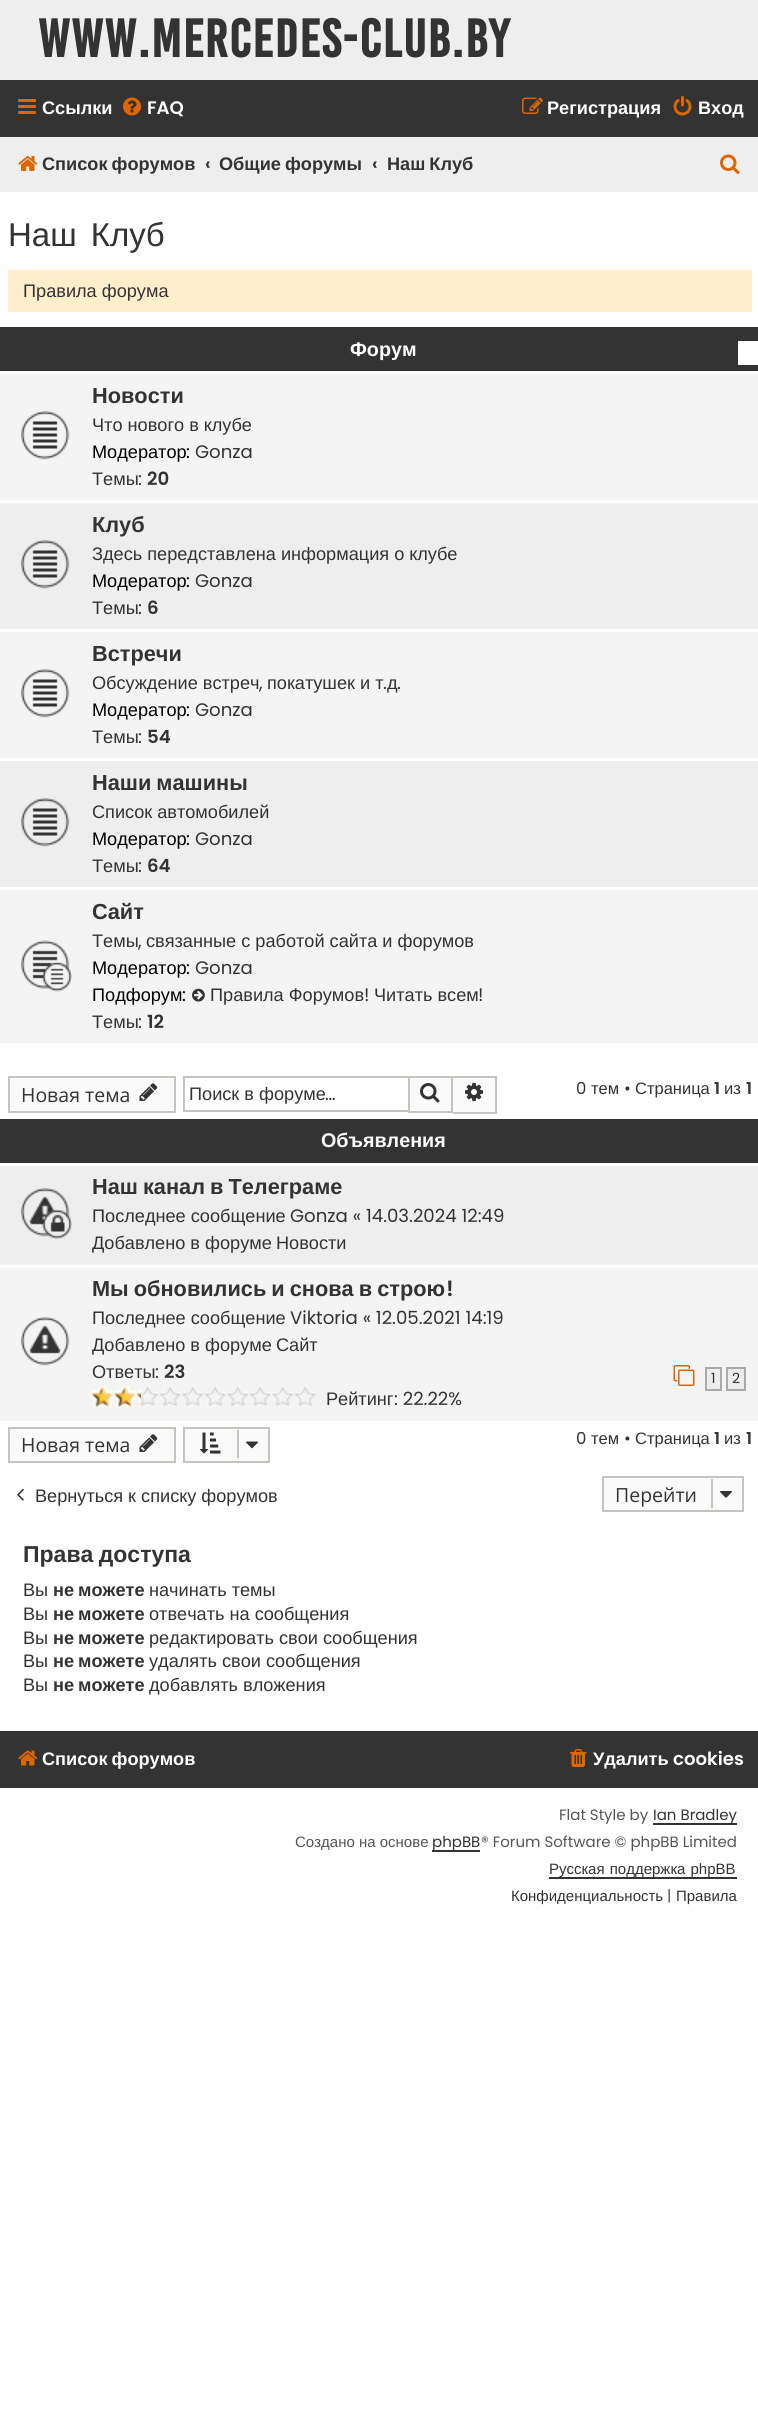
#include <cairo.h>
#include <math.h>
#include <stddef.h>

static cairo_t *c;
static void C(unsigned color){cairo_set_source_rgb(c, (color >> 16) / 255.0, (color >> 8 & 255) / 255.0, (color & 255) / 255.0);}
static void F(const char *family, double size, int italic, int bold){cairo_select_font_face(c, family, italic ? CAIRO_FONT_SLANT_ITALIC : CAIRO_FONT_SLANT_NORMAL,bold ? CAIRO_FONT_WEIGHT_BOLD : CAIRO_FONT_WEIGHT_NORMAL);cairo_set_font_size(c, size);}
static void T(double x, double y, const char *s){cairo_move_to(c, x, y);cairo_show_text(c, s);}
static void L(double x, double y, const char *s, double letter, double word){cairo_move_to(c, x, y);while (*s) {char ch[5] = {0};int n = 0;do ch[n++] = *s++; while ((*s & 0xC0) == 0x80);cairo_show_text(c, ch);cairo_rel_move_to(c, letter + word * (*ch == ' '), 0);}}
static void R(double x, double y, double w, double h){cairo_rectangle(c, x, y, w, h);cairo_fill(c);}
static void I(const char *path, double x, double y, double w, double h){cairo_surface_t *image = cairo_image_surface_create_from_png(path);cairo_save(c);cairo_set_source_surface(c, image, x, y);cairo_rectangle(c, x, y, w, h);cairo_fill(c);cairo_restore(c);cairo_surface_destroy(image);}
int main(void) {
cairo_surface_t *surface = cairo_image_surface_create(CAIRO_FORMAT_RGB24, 758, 2424);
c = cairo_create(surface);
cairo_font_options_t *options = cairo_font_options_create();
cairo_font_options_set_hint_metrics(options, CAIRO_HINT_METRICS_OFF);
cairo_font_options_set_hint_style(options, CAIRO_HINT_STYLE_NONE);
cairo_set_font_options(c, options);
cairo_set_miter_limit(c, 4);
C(0xffffff);
cairo_paint(c);
C(0xeeeeee);
R(0,0,758,80);
F("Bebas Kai",41.25,0,1);
C(0x333333);
L(38,57,"www.mercedes-club.by",1.5,0);
R(0,80,758,57);
I("1.png",18,99,18,15);
F("Liberation Sans",18.15,0,1);
C(0xffffff);
T(42,114,"Ссылки");
I("2.png",123,97,18,19);
F("Poppins SemiBold",18.15,0,0);
T(147,114,"FAQ");
I("3.png",522,97,21,17);
F("Liberation Sans",18.15,0,1);
T(547,114,"Регистрация");
I("4.png",673,96,19,20);
T(698,114,"Вход");
C(0xeeeeee);
R(0,137,758,55);
I("5.png",18,156,20,15);
C(0x333333);
L(42,170,"Список форумов",0,-1);
F("Poppins SemiBold",18.15,0,0);
T(205,170,"‹");
F("Liberation Sans",18.15,0,1);
L(219,170,"Общие форумы",0,-1);
F("Poppins SemiBold",18.15,0,0);
T(372,170,"‹");
F("Liberation Sans",18.15,0,1);
L(387,170,"Наш Клуб",0,-1);
I("6.png",720,154,20,20);
F("Liberation Sans",33,0,0);
L(8,246,"Наш Клуб",0,5);
C(0xffeecc);
R(8,270,744,42);
F("Liberation Sans",18.15,0,0);
C(0x333333);
T(23,297,"Правила форума");
R(0,327,758,44);
F("Liberation Sans",19.75,0,1);
C(0xffffff);
T(350,356,"Форум");
R(738,341,20,24);
C(0xeeeeee);
R(0,503,758,384);
C(0xf4f4f4);
R(0,374,758,126);
I("7.png",21,411,49,49);
F("Liberation Sans",21.75,0,1);
C(0x333333);
T(92,403,"Новости");
F("Liberation Sans",18.15,0,0);
T(92,431,"Что нового в клубе");
C(0x000000);
T(92,458,"Модератор");
F("Poppins",18.15,0,0);
T(186,458,":");
C(0x333333);
T(195,458,"Gonza");
F("Liberation Sans",18.15,0,0);
T(92,485,"Темы");
F("Poppins",18.15,0,0);
T(138,485,":");
F("Poppins SemiBold",18.15,0,0);
T(147,485,"20");
I("8.png",21,540,49,49);
F("Liberation Sans",21.75,0,1);
T(92,532,"Клуб");
F("Liberation Sans",18.15,0,0);
T(92,560,"Здесь передставлена информация о клубе");
C(0x000000);
T(92,587,"Модератор");
F("Poppins",18.15,0,0);
T(186,587,":");
C(0x333333);
T(195,587,"Gonza");
F("Liberation Sans",18.15,0,0);
T(92,614,"Темы");
F("Poppins",18.15,0,0);
T(138,614,":");
F("Poppins SemiBold",18.15,0,0);
T(147,614,"6");
C(0xf4f4f4);
R(0,632,758,126);
C(0xffffff);
R(0,629,758,3);
I("7.png",21,669,49,49);
F("Liberation Sans",21.75,0,1);
C(0x333333);
T(92,661,"Встречи");
F("Liberation Sans",18.15,0,0);
T(92,689,"Обсуждение встреч");
F("Poppins",18.15,0,0);
T(259,689,",");
F("Liberation Sans",18.15,0,0);
T(267,689,"покатушек и т");
F("Poppins",18.15,0,0);
T(383,689,".");
F("Liberation Sans",18.15,0,0);
T(387,689,"д");
F("Poppins",18.15,0,0);
T(397,689,".");
F("Liberation Sans",18.15,0,0);
C(0x000000);
T(92,716,"Модератор");
F("Poppins",18.15,0,0);
T(186,716,":");
C(0x333333);
T(195,716,"Gonza");
F("Liberation Sans",18.15,0,0);
T(92,743,"Темы");
F("Poppins",18.15,0,0);
T(138,743,":");
F("Poppins SemiBold",18.15,0,0);
T(147,743,"54");
C(0xffffff);
R(0,758,758,3);
I("8.png",21,798,49,49);
F("Liberation Sans",21.75,0,1);
C(0x333333);
L(92,790,"Наши машины",0,-1);
F("Liberation Sans",18.15,0,0);
T(92,818,"Список автомобилей");
C(0x000000);
T(92,845,"Модератор");
F("Poppins",18.15,0,0);
T(186,845,":");
C(0x333333);
T(195,845,"Gonza");
F("Liberation Sans",18.15,0,0);
T(92,872,"Темы");
F("Poppins",18.15,0,0);
T(138,872,":");
F("Poppins SemiBold",18.15,0,0);
T(147,872,"64");
C(0xf4f4f4);
R(0,890,758,153);
I("9.png",21,940,51,52);
F("Liberation Sans",21.75,0,1);
C(0x333333);
T(92,919,"Сайт");
F("Liberation Sans",18.15,0,0);
T(92,947,"Темы");
F("Poppins",18.15,0,0);
T(138,947,",");
F("Liberation Sans",18.15,0,0);
T(146,947,"связанные с работой сайта и форумов");
C(0x000000);
T(92,974,"Модератор");
F("Poppins",18.15,0,0);
T(186,974,":");
C(0x333333);
T(195,974,"Gonza");
F("Liberation Sans",18.15,0,0);
C(0x000000);
T(92,1001,"Подфорум");
F("Poppins",18.15,0,0);
T(182,1001,":");
I("10.png",192,988,13,14);
F("Liberation Sans",18.15,0,0);
C(0x333333);
T(210,1001,"Правила Форумов");
F("Poppins",18.15,0,0);
T(364,1001,"!");
F("Liberation Sans",18.15,0,0);
T(374,1001,"Читать всем");
F("Poppins",18.15,0,0);
T(478,1001,"!");
F("Liberation Sans",18.15,0,0);
T(92,1028,"Темы");
F("Poppins",18.15,0,0);
T(138,1028,":");
F("Poppins SemiBold",18.15,0,0);
T(147,1028,"12");
C(0xfafafa);
cairo_rectangle(c,9,1077,166,35);
cairo_fill_preserve(c);
C(0xc7c3bf);
cairo_stroke(c);
F("Open Sans",19.5,0,0);
C(0x333333);
T(21,1102,"Новая тема");
I("11.png",139,1083,19,18);
C(0xc7c3bf);
R(183,1076,225,2);
R(183,1110,225,2);
R(183,1076,2,36);
F("Liberation Sans",18.15,0,0);
C(0x333333);
T(189,1100,"Поиск в форуме");
F("Poppins",18.15,0,0);
T(325,1100,"…");
C(0xfafafa);
cairo_rectangle(c,409,1077,43,35);
cairo_fill_preserve(c);
C(0xc7c3bf);
cairo_stroke(c);
I("12.png",420,1083,20,20);
C(0xfafafa);
R(453,1078,42,34);
C(0xc7c3bf);
R(453,1076,44,2);
R(495,1076,2,37);
R(453,1112,44,2);
I("13.png",465,1083,18,18);
F("Poppins",16.5,0,0);
C(0x333333);
T(576,1094,"0");
F("Liberation Sans",16.5,0,0);
T(591,1094,"тем");
F("Poppins",16.5,0,0);
T(624,1094,"•");
F("Liberation Sans",16.5,0,0);
T(635,1094,"Страница");
F("Poppins SemiBold",16.5,0,0);
T(714,1094,"1");
F("Liberation Sans",16.5,0,0);
T(724,1094,"из");
F("Poppins SemiBold",16.5,0,0);
T(746,1094,"1");
R(0,1119,758,44);
F("Liberation Sans",19.75,0,1);
C(0xffffff);
T(321,1147,"Объявления");
C(0xeeeeee);
R(0,1166,758,99);
I("14.png",21,1188,51,51);
F("Liberation Sans",21.75,0,1);
C(0x333333);
L(92,1194,"Наш канал в Телеграме",0,-1);
F("Liberation Sans",18.15,0,0);
T(92,1222,"Последнее сообщение");
F("Poppins",18.15,0,0);
T(290,1222,"Gonza « 14.03.2024 12:49");
F("Liberation Sans",18.15,0,0);
T(92,1249,"Добавлено в форуме");
T(276,1249,"Новости");
C(0xf4f4f4);
R(0,1268,758,153);
I("15.png",21,1317,49,49);
F("Liberation Sans",21.75,0,1);
C(0x333333);
L(92,1296,"Мы обновились и снова в строю",0,-1);
F("Poppins SemiBold",21.75,0,0);
T(446,1296,"!");
F("Liberation Sans",18.15,0,0);
T(92,1324,"Последнее сообщение");
F("Poppins",18.15,0,0);
T(290,1324,"Viktoria « 12.05.2021 14:19");
F("Liberation Sans",18.15,0,0);
T(92,1351,"Добавлено в форуме");
T(276,1351,"Сайт");
T(92,1378,"Ответы");
F("Poppins",18.15,0,0);
T(155,1378,":");
F("Poppins SemiBold",18.15,0,0);
T(164,1378,"23");
I("16.png",673,1365,22,21);
C(0xecedee);
cairo_rectangle(c,706,1368,15,22);
cairo_fill_preserve(c);
C(0xaaaaaa);
cairo_stroke(c);
F("Poppins",14,0,0);
C(0x333333);
T(711,1383,"1");
C(0xecedee);
cairo_rectangle(c,727,1368,18,22);
cairo_fill_preserve(c);
C(0xaaaaaa);
cairo_stroke(c);
C(0x333333);
T(732,1383,"2");
I("17.png",94,1386,222,21);
I("18.png",91,1386,50,21);
F("Liberation Sans",18.15,0,0);
T(326,1405,"Рейтинг");
F("Poppins",18.15,0,0);
T(394,1405,": 22.22%");
C(0xfafafa);
cairo_rectangle(c,9,1428,166,34);
cairo_fill_preserve(c);
C(0xc7c3bf);
cairo_stroke(c);
F("Open Sans",19.5,0,0);
C(0x333333);
T(21,1452,"Новая тема");
I("11.png",139,1434,19,18);
C(0xfafafa);
cairo_rectangle(c,184,1428,85,34);
cairo_fill_preserve(c);
C(0xc7c3bf);
cairo_stroke(c);
I("19.png",199,1432,22,22);
R(237,1430,2,28);
I("20.png",246,1441,12,8);
F("Poppins",16.5,0,0);
C(0x333333);
T(576,1444,"0");
F("Liberation Sans",16.5,0,0);
T(591,1444,"тем");
F("Poppins",16.5,0,0);
T(624,1444,"•");
F("Liberation Sans",16.5,0,0);
T(635,1444,"Страница");
F("Poppins SemiBold",16.5,0,0);
T(714,1444,"1");
F("Liberation Sans",16.5,0,0);
T(724,1444,"из");
F("Poppins SemiBold",16.5,0,0);
T(746,1444,"1");
I("21.png",17,1489,7,12);
F("Liberation Sans",18.15,0,0);
T(35,1502,"Вернуться к списку форумов");
C(0xfafafa);
cairo_rectangle(c,603,1477,140,34);
cairo_fill_preserve(c);
C(0xc7c3bf);
cairo_stroke(c);
F("Open Sans",19.5,0,0);
C(0x333333);
T(615,1502,"Перейти");
C(0xc7c3bf);
R(711,1479,2,29);
I("22.png",720,1491,12,7);
F("Liberation Sans",23,0,1);
C(0x333333);
L(23,1562,"Права доступа",0,-1);
F("Liberation Sans",18.15,0,0);
T(23,1596,"Вы");
F("Liberation Sans",18.15,0,1);
L(53,1596,"не можете",0,-1);
F("Liberation Sans",18.15,0,0);
T(149,1596,"начинать темы");
T(23,1620,"Вы");
F("Liberation Sans",18.15,0,1);
L(53,1620,"не можете",0,-1);
F("Liberation Sans",18.15,0,0);
T(149,1620,"отвечать на сообщения");
T(23,1644,"Вы");
F("Liberation Sans",18.15,0,1);
L(53,1644,"не можете",0,-1);
F("Liberation Sans",18.15,0,0);
T(149,1644,"редактировать свои сообщения");
T(23,1667,"Вы");
F("Liberation Sans",18.15,0,1);
L(53,1667,"не можете",0,-1);
F("Liberation Sans",18.15,0,0);
T(149,1667,"удалять свои сообщения");
T(23,1691,"Вы");
F("Liberation Sans",18.15,0,1);
L(53,1691,"не можете",0,-1);
F("Liberation Sans",18.15,0,0);
T(149,1691,"добавлять вложения");
R(0,1731,758,57);
I("23.png",18,1750,20,16);
F("Liberation Sans",18.15,0,1);
C(0xffffff);
L(42,1765,"Список форумов",0,-1);
I("24.png",570,1749,17,18);
T(593,1765,"Удалить");
F("Poppins SemiBold",18.15,0,0);
T(673,1765,"cookies");
F("Poppins",15,0,0);
C(0x555555);
T(559,1820,"Flat Style by");
C(0x333333);
R(653,1823,84,2);
T(653,1820,"Ian Bradley");
F("Liberation Sans",15,0,0);
C(0x555555);
T(295,1847,"Создано на основе");
C(0x333333);
R(432,1850,48,2);
F("Poppins",15,0,0);
T(432,1847,"phpBB");
C(0x555555);
T(481,1847,"® Forum Software © phpBB Limited");
C(0x333333);
R(549,1877,188,2);
F("Liberation Sans",15,0,0);
L(549,1874,"Русская поддержка phpBB",0,1);
T(511,1901,"Конфиденциальность");
F("Poppins",15,0,0);
C(0x555555);
T(667,1901,"|");
F("Liberation Sans",15,0,0);
C(0x333333);
T(676,1901,"Правила");
cairo_surface_write_to_png(surface, "o.png");
cairo_font_options_destroy(options);
cairo_destroy(c);
cairo_surface_destroy(surface);
return 0;
}
